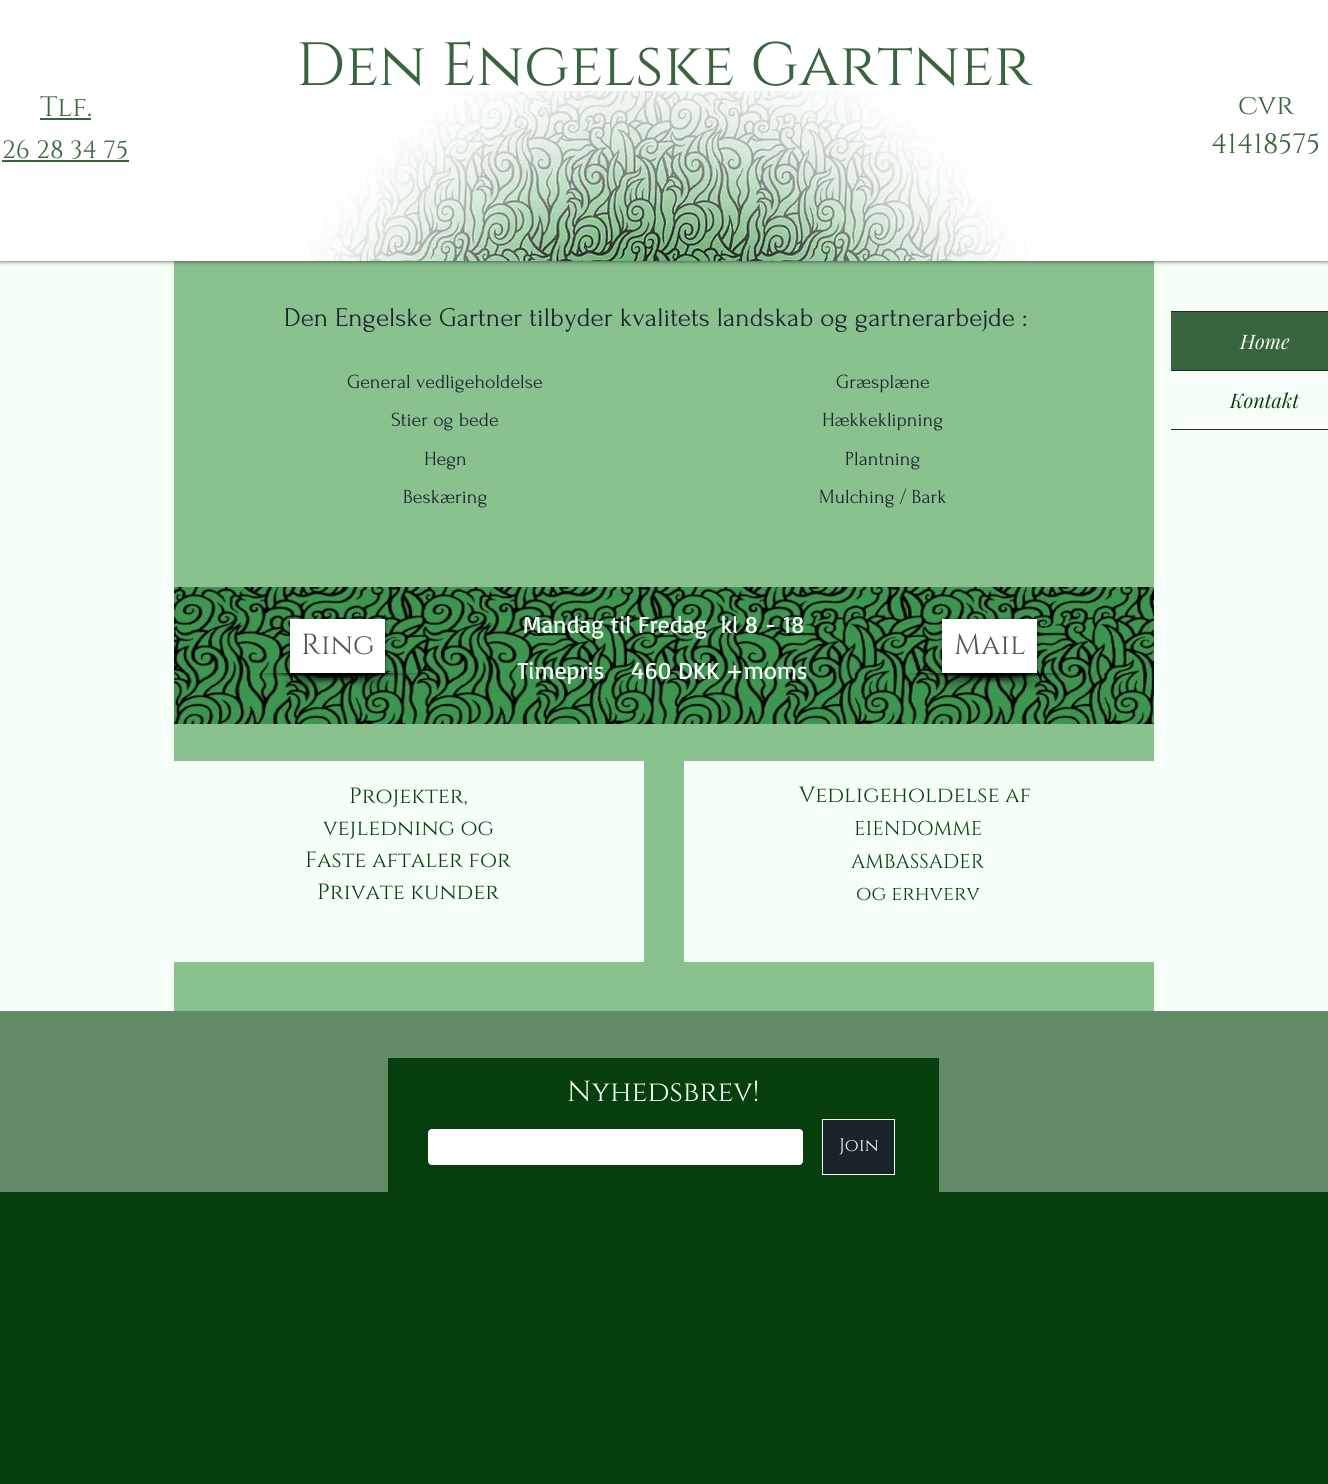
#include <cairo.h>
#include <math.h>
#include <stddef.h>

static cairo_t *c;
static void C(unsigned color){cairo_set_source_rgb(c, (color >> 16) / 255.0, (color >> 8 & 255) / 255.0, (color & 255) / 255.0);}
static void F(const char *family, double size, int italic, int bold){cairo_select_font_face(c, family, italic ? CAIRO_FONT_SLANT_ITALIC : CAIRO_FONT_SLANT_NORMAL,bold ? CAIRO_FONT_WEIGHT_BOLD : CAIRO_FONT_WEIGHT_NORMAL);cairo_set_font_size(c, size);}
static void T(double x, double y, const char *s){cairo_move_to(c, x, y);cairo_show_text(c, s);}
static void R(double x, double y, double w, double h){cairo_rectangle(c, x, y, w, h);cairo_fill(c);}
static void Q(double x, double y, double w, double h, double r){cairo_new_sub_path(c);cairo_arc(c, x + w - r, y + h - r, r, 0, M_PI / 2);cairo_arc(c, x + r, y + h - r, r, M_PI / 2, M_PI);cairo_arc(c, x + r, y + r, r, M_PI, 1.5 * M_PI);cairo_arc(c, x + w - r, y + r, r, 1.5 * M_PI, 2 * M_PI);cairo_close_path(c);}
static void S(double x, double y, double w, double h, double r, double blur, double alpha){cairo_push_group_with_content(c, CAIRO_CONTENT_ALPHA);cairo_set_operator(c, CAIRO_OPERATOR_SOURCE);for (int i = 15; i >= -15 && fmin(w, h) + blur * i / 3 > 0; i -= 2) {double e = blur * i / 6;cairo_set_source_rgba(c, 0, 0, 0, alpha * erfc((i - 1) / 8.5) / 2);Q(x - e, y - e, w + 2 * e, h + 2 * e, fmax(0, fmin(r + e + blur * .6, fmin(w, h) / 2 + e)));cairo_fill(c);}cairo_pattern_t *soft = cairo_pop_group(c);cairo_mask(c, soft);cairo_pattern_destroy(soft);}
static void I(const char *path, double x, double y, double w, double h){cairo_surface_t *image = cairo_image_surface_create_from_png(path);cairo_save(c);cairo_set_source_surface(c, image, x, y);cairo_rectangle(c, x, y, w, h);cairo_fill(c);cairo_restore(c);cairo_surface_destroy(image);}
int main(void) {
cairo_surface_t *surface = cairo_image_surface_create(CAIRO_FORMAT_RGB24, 1328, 1484);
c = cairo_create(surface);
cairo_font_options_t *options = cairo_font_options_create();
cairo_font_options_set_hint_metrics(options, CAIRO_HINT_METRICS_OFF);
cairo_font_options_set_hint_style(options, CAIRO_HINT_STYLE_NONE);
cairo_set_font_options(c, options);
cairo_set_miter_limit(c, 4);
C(0x063f0d);
cairo_paint(c);
C(0xf5fff7);
R(0,261,1328,750);
C(0x8ac28f);
R(174,261,980,750);
C(0x000000);
S(0,0,1328,261,0,2.5,.7);
C(0xffffff);
R(0,0,1328,261);
F("Cinzel",61,0,0);
C(0x38653d);
T(296,85,"Den Engelske Gartner");
F("Cinzel",28,0,0);
T(40,116,"Tlf.");
R(40,118,51,2);
F("Cinzel",25,0,0);
T(2,158,"26 28 34 75");
R(2,160,127,2);
I("1.png",309,91,717,170);
F("Cinzel",28,0,0);
T(1238,114,"cvr");
T(1211,153,"41418575");
F("Forum",27,0,0);
C(0x19232a);
T(284,326,"Den Engelske Gartner tilbyder kvalitets landskab og gartnerarbejde :");
F("Forum",20,0,0);
T(347,388,"General vedligeholdelse");
T(391,426,"Stier og bede");
T(424,465,"Hegn");
T(403,503,"Beskæring");
T(836,388,"Græsplæne");
T(822,426,"Hækkeklipning");
T(845,465,"Plantning");
T(819,503,"Mulching / Bark");
I("2.png",174,587,980,137);
I("4.png",282,673,136,16);
I("3.png",250,673,143,17);
C(0x000000);
S(290,620,95,54,0,2,.6);
C(0xffffff);
R(290,619,95,54);
F("Cinzel",29,0,0);
C(0x59514d);
T(301,654,"Ring");
F("Basic",24,0,0);
C(0xf5fff7);
T(523,633,"Mandag til Fredag  kl 8 - 18");
T(517,679,"Timepris    460 DKK +moms");
I("6.png",934,673,143,17);
I("5.png",898,673,146,17);
C(0x000000);
S(942,620,95,54,0,2,.6);
C(0xffffff);
R(942,619,95,54);
F("Cinzel",29,0,0);
C(0x59514d);
T(954,654,"Mail");
C(0xf5fff7);
R(174,761,470,201);
F("Cinzel",22,0,0);
C(0x063f0d);
T(349,803,"Projekter,");
T(323,835,"vejledning og");
T(305,867,"Faste aftaler for");
T(317,899,"Private kunder");
C(0xf5fff7);
R(684,761,470,201);
C(0x063f0d);
T(799,802,"Vedligeholdelse af");
F("Cinzel",20,0,0);
T(854,835,"EIENDOMME");
T(851,868,"AMBASSADER");
T(856,900,"og erhverv");
C(0x628c67);
R(0,1011,1328,181);
C(0x063f0d);
R(388,1058,551,134);
F("Cinzel",29,0,0);
C(0xf5fff7);
T(567,1101,"Nyhedsbrev!");
C(0xffffff);
Q(428,1129,375,36,4);
cairo_fill(c);
C(0x19232a);
cairo_rectangle(c,822.5,1119.5,72,55);
cairo_fill_preserve(c);
C(0xf5fff7);
cairo_set_line_width(c,1);
cairo_stroke(c);
F("Cinzel",18,0,0);
T(839,1151,"Join");
C(0x282626);
R(1171,311,157,1);
R(1171,429,157,1);
R(1171,370,157,1);
C(0x38653d);
R(1171,312,157,58);
F("Playfair Display",20,1,0);
C(0xf5fff7);
T(1240,349,"Home");
C(0x063f0d);
T(1230,408,"Kontakt");
cairo_surface_write_to_png(surface, "o.png");
cairo_font_options_destroy(options);
cairo_destroy(c);
cairo_surface_destroy(surface);
return 0;
}
